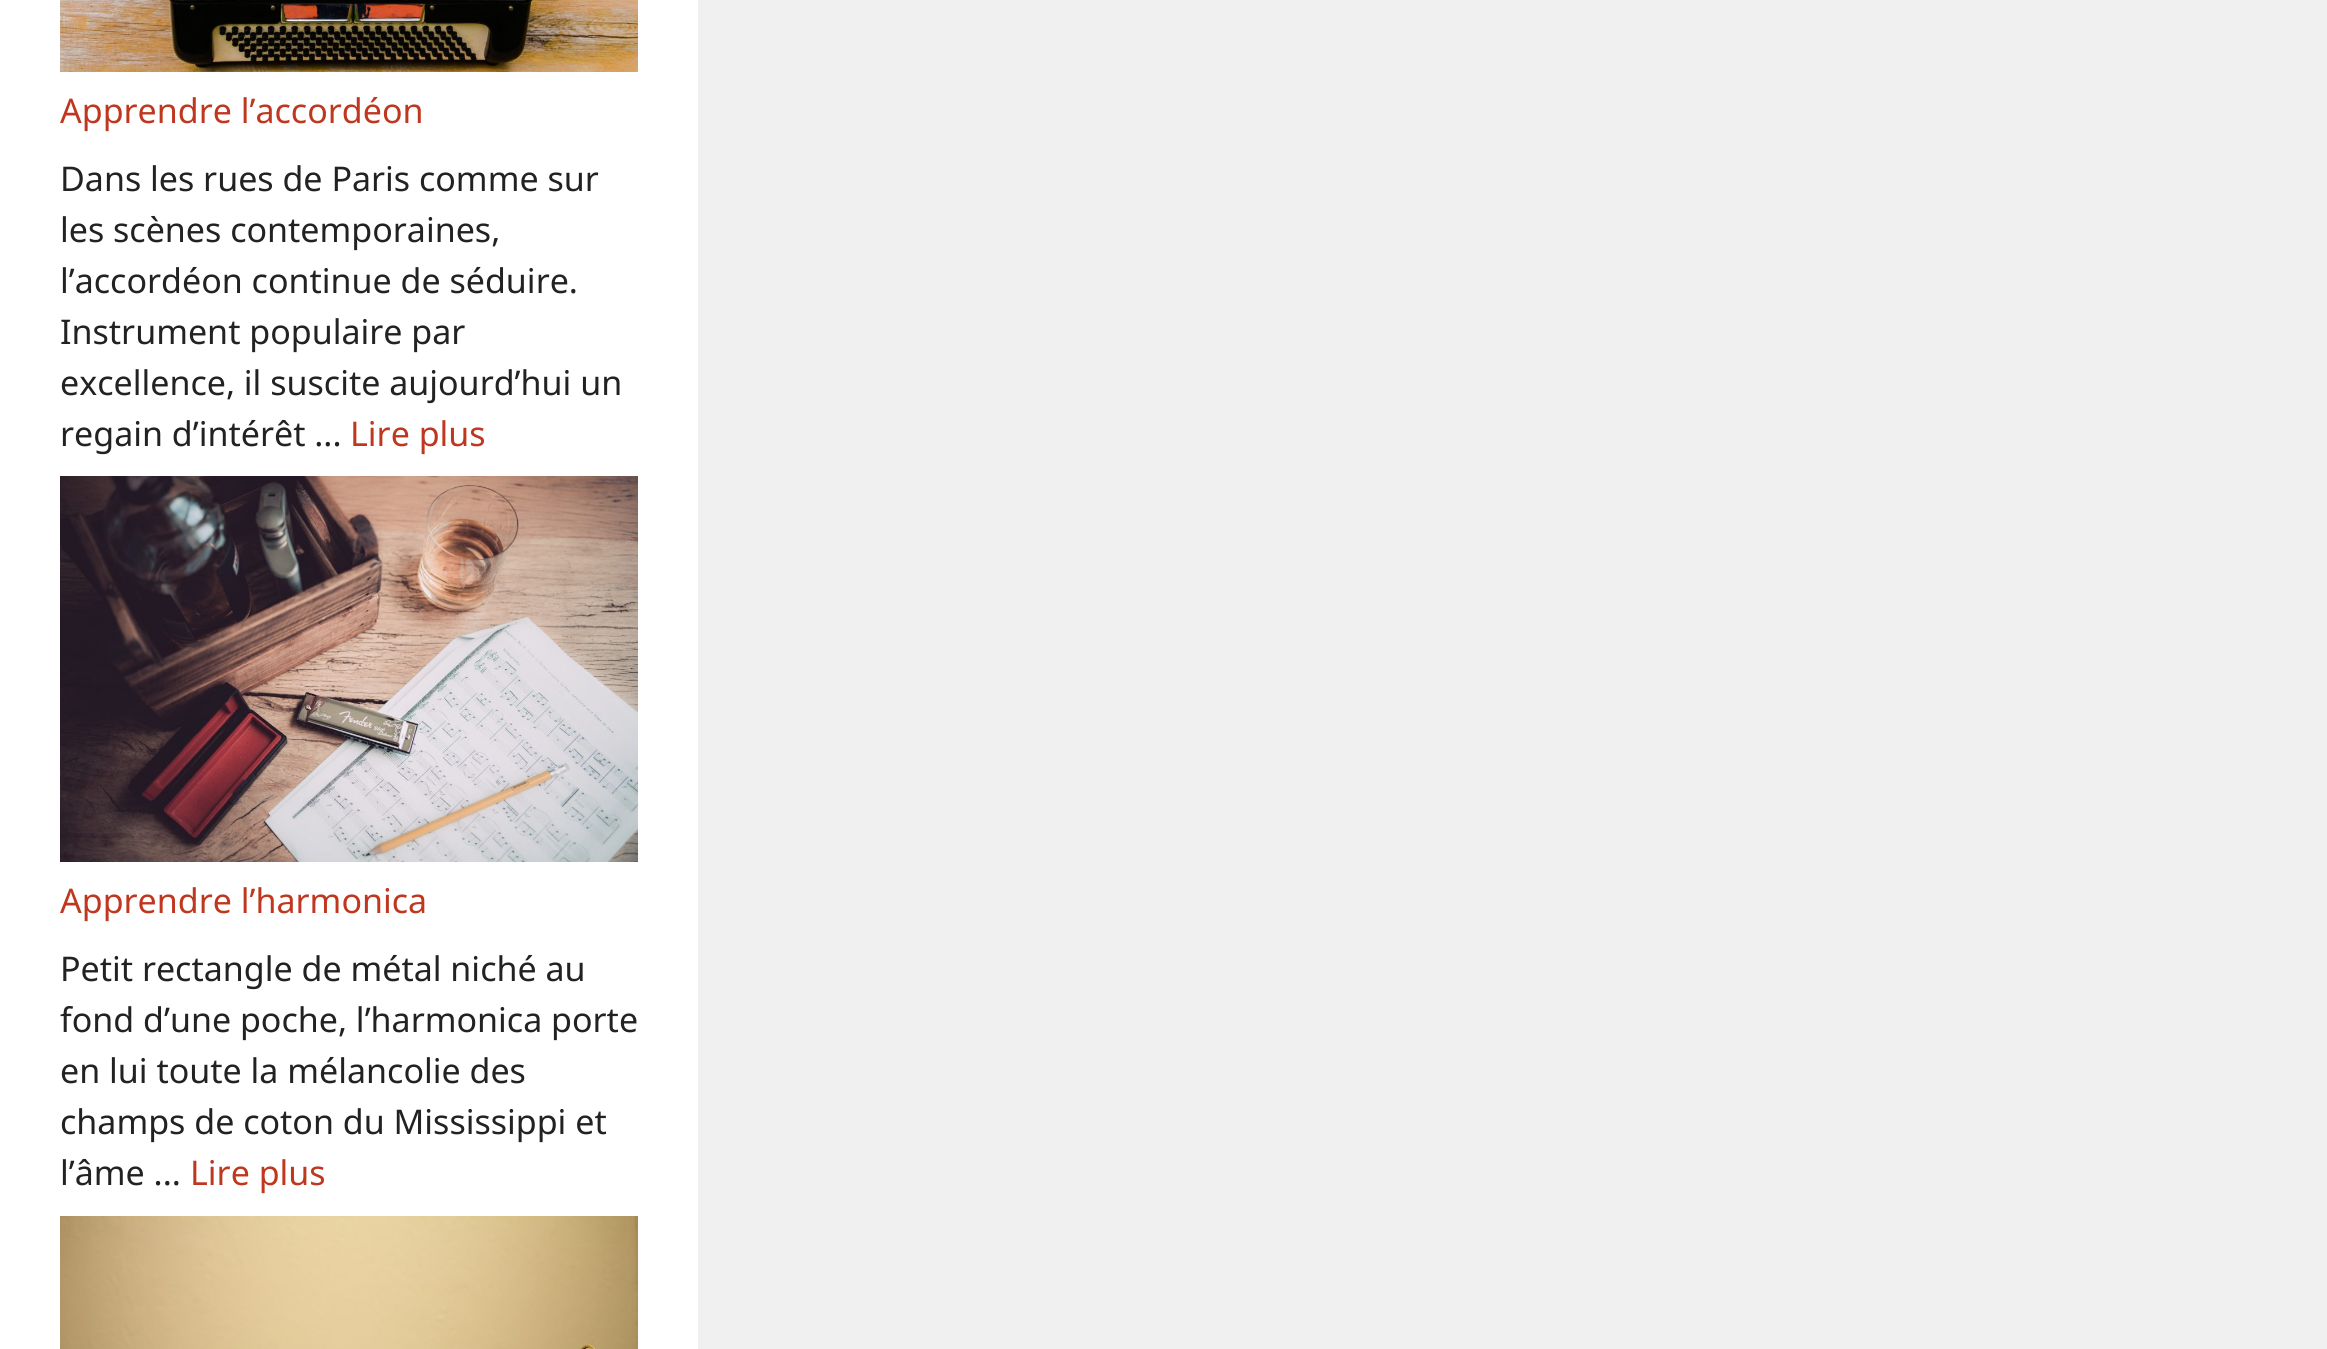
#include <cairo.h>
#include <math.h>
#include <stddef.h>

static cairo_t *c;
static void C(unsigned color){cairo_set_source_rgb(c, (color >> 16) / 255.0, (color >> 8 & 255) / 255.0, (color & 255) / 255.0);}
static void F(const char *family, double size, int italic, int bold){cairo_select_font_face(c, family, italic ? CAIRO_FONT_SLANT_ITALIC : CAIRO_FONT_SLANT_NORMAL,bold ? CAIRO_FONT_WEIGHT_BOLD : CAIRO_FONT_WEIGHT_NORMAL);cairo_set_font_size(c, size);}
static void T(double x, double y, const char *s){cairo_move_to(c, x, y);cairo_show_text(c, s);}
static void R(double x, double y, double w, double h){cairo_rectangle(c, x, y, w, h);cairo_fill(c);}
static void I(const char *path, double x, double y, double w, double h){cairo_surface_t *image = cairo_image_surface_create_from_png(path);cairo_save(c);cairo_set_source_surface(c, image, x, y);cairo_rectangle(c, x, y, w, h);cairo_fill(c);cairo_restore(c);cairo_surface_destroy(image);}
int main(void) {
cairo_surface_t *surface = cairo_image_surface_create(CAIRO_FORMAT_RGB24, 2327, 1349);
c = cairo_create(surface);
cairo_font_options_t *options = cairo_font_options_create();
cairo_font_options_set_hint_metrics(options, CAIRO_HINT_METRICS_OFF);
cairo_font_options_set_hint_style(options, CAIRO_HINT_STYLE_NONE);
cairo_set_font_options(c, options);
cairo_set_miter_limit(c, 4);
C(0xf0f0f0);
cairo_paint(c);
C(0xffffff);
R(0,0,698,1349);
I("1.png",60,0,578,72);
F("Noto Sans",34,0,0);
C(0xbf371f);
T(60,123,"Apprendre l’accordéon");
C(0x222222);
T(60,191,"Dans les rues de Paris comme sur");
T(60,242,"les scènes contemporaines,");
T(60,293,"l’accordéon continue de séduire.");
T(60,344,"Instrument populaire par");
T(60,395,"excellence, il suscite aujourd’hui un");
T(60,446,"regain d’intérêt ...");
C(0xbf371f);
T(350,446,"Lire plus");
I("2.png",60,476,578,386);
T(60,913,"Apprendre l’harmonica");
C(0x222222);
T(60,981,"Petit rectangle de métal niché au");
T(60,1032,"fond d’une poche, l’harmonica porte");
T(60,1083,"en lui toute la mélancolie des");
T(60,1134,"champs de coton du Mississippi et");
T(60,1185,"l’âme ...");
C(0xbf371f);
T(190,1185,"Lire plus");
I("3.png",60,1216,578,133);
cairo_surface_write_to_png(surface, "o.png");
cairo_font_options_destroy(options);
cairo_destroy(c);
cairo_surface_destroy(surface);
return 0;
}
